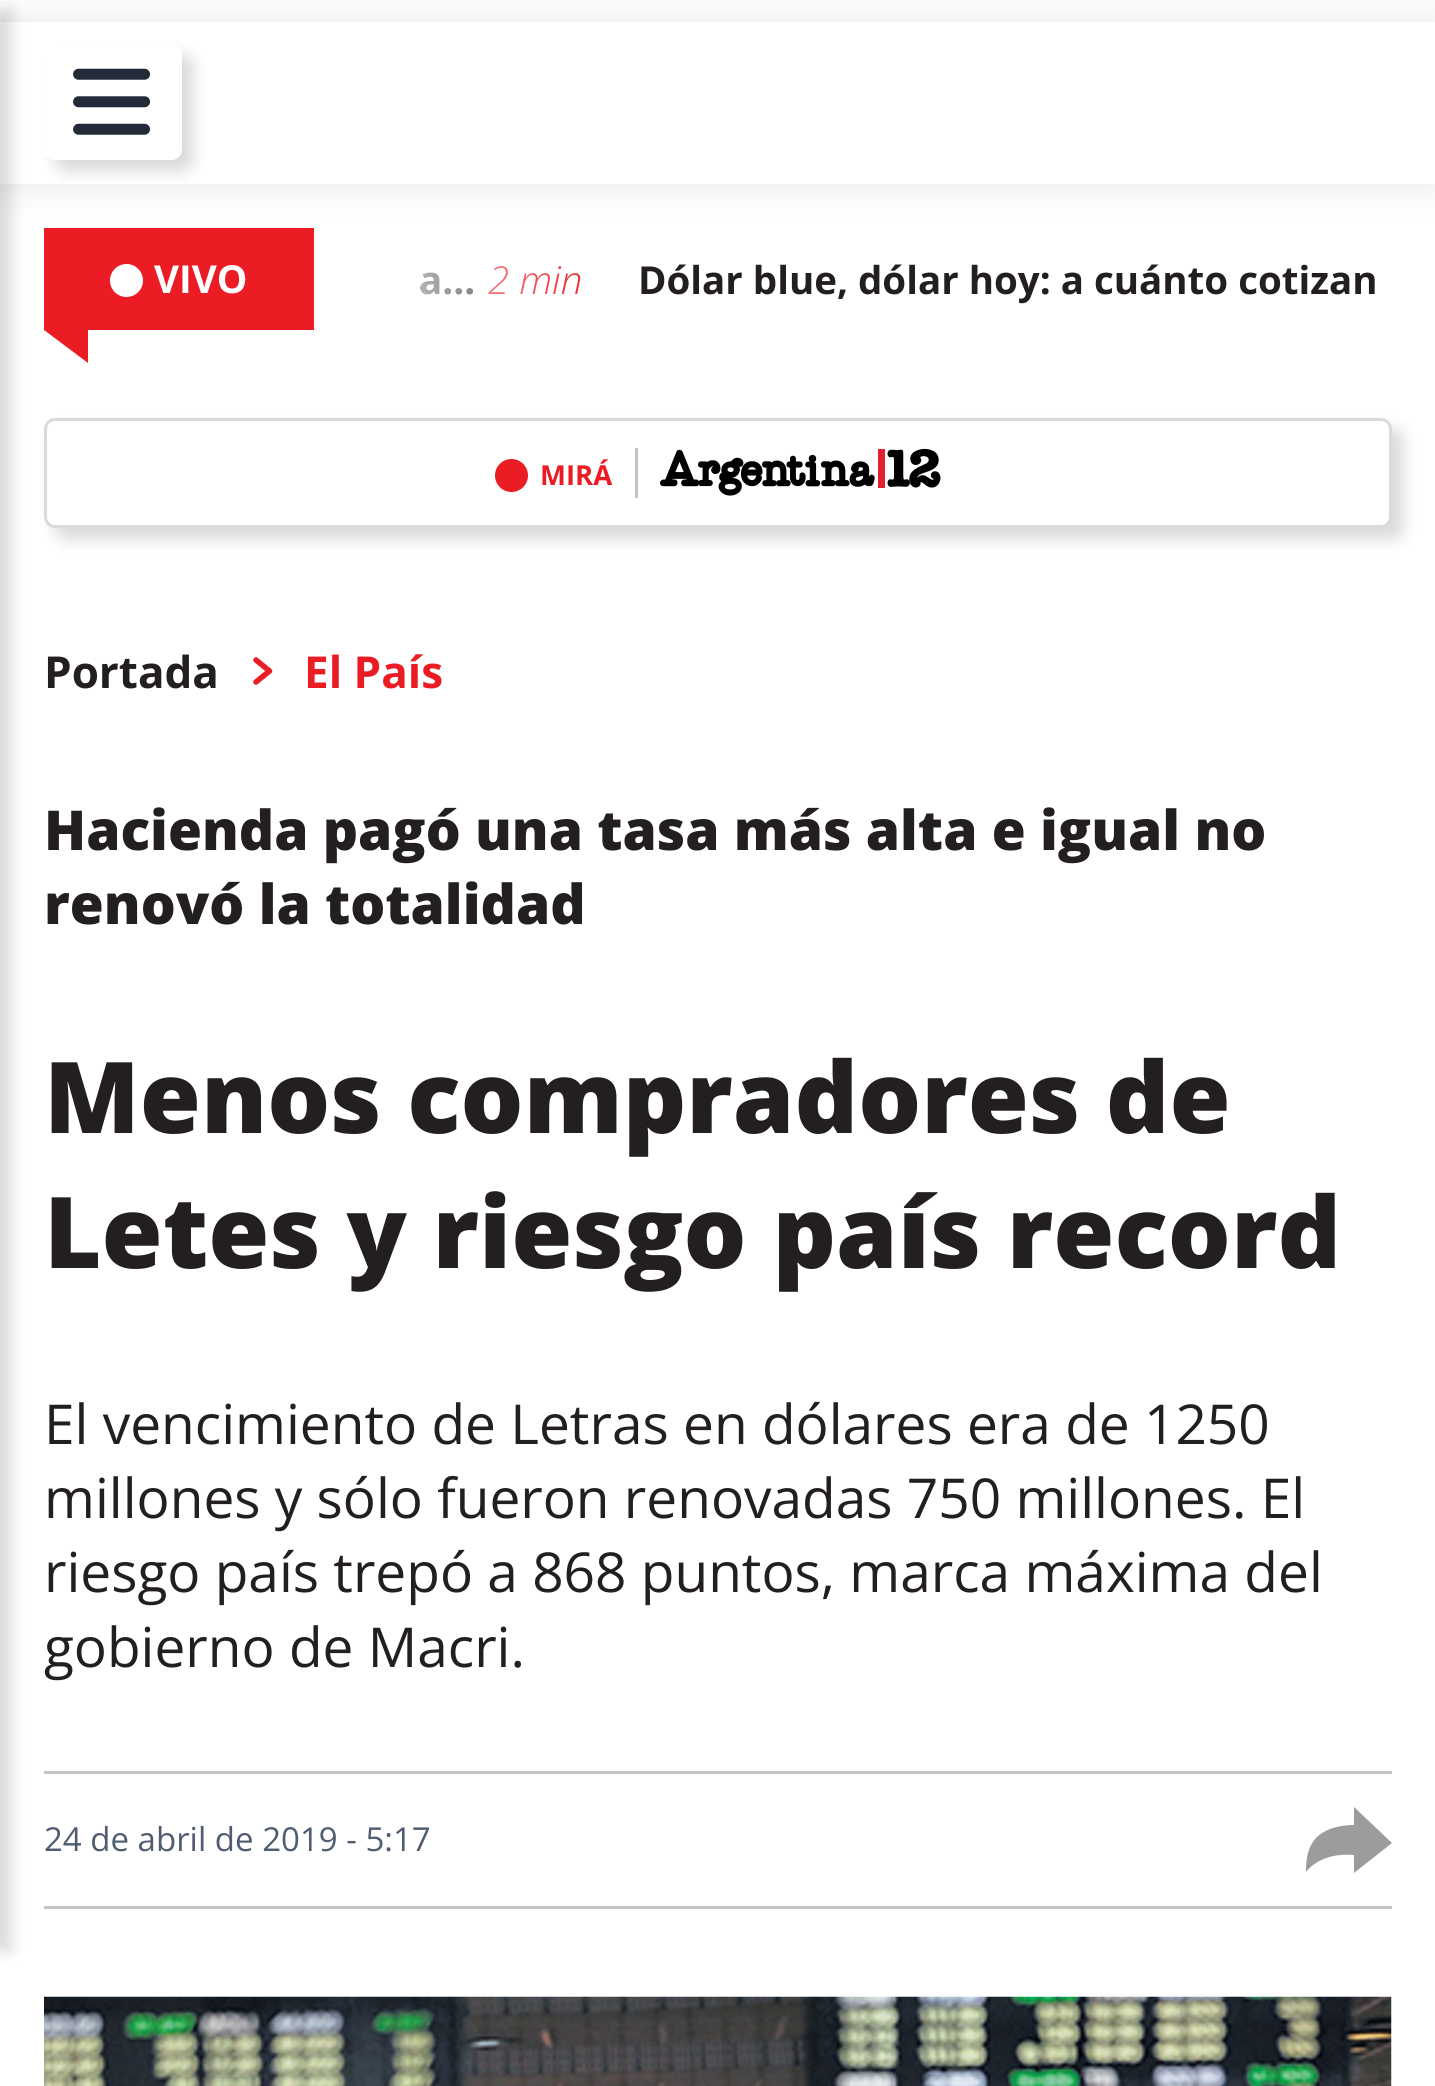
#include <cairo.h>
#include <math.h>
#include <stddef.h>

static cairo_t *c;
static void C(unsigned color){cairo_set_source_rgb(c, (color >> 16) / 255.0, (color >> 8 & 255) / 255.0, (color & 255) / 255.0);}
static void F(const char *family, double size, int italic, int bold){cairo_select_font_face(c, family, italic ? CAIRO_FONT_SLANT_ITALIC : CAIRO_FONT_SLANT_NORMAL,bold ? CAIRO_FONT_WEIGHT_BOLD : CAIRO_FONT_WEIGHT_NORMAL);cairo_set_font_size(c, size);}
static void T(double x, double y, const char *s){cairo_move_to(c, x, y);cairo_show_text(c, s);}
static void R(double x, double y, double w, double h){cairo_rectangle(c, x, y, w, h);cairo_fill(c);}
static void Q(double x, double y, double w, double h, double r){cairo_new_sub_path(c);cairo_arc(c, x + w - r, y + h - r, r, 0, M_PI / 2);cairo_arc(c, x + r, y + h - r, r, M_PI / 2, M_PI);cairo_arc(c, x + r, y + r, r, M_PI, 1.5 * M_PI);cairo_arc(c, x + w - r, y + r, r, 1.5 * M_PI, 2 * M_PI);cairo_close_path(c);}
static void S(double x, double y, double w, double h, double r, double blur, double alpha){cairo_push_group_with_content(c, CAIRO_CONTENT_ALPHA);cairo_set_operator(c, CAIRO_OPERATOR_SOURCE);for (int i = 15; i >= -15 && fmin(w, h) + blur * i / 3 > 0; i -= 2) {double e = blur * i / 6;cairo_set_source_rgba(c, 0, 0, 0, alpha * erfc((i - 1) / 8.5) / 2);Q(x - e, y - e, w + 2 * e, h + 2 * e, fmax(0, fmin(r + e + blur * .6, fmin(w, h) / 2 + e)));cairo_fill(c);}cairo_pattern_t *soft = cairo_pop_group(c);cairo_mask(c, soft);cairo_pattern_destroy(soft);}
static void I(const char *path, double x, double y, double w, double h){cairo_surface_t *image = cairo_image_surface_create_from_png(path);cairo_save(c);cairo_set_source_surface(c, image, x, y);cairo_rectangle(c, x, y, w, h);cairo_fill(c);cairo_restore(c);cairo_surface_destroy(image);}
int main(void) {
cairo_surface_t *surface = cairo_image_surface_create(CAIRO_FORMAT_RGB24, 1435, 2086);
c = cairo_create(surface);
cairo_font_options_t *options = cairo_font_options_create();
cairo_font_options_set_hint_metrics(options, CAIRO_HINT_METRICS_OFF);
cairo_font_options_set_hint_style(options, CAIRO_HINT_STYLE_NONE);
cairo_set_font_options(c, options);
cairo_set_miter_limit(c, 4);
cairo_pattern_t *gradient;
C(0xffffff);
cairo_paint(c);
cairo_save(c);
cairo_set_fill_rule(c,CAIRO_FILL_RULE_EVEN_ODD);
cairo_new_path(c);
cairo_move_to(c,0,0);
cairo_line_to(c,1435,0);
cairo_line_to(c,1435,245);
cairo_line_to(c,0,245);
cairo_close_path(c);
cairo_move_to(c,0,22);
cairo_line_to(c,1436,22);
cairo_line_to(c,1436,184);
cairo_line_to(c,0,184);
cairo_close_path(c);
cairo_clip(c);
C(0x000000);
S(0,22,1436,162,0,20,.1);
cairo_restore(c);
cairo_save(c);
cairo_set_fill_rule(c,CAIRO_FILL_RULE_EVEN_ODD);
cairo_new_path(c);
cairo_move_to(c,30,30);
cairo_line_to(c,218,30);
cairo_line_to(c,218,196);
cairo_line_to(c,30,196);
cairo_close_path(c);
cairo_move_to(c,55,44);
cairo_line_to(c,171,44);
cairo_curve_to(c,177,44,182,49,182,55);
cairo_line_to(c,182,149);
cairo_curve_to(c,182,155,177,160,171,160);
cairo_line_to(c,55,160);
cairo_curve_to(c,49,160,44,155,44,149);
cairo_line_to(c,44,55);
cairo_curve_to(c,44,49,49,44,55,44);
cairo_close_path(c);
cairo_clip(c);
C(0x000000);
S(55,55,138,116,11,8,.15);
cairo_restore(c);
Q(45.5,45.5,135,113,9.5);
C(0xffffff);
cairo_set_line_width(c,3);
cairo_stroke(c);
I("1.png",73,68,77,67);
C(0x000000);
S(-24,11,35,1939,0,8,.15);
C(0xec1c24);
R(44,228,270,102);
C(0xffffff);
cairo_arc(c,126.5,280.5,16.5,0,2 * M_PI);
cairo_fill(c);
F("Open Sans",38.5,0,1);
T(154,293,"VIVO");
C(0xec1c24);
cairo_new_path(c);
cairo_move_to(c,88,330);
cairo_line_to(c,88,363);
cairo_line_to(c,44,330);
cairo_close_path(c);
cairo_fill(c);
C(0x231f20);
T(419,294,"a…");
F("Open Sans Light",38.5,1,0);
C(0xec1c24);
T(488,294,"2 min");
F("Open Sans",38.5,0,1);
C(0x231f20);
T(638,294,"Dólar blue, dólar hoy: a cuánto cotizan");
gradient = cairo_pattern_create_linear(325,279,600,279);
cairo_pattern_add_color_stop_rgba(gradient,0,1,1,1,1);
cairo_pattern_add_color_stop_rgba(gradient,1,1,1,1,0);
cairo_set_source(c,gradient);
cairo_pattern_destroy(gradient);
R(421,266,160,29);
C(0x000000);
S(55,429,1348,110,11,8,.15);
C(0xffffff);
Q(45.5,419.5,1345,107,9.5);
cairo_fill_preserve(c);
C(0xdadada);
cairo_stroke(c);
C(0xec1c24);
cairo_arc(c,511.5,475.5,16.5,0,2 * M_PI);
cairo_fill(c);
F("Open Sans",27.5,0,1);
T(540,485,"MIRÁ");
C(0xc4c4c4);
R(635,448,3,50);
I("2.png",660,448,281,48);
F("Open Sans",44,0,1);
C(0x231f20);
T(44,688,"Portada");
cairo_new_path(c);
cairo_move_to(c,256,682);
cairo_line_to(c,269.5,671);
cairo_line_to(c,256,660);
C(0xec1c24);
cairo_set_line_width(c,5.5);
cairo_set_line_cap(c,CAIRO_LINE_CAP_ROUND);
cairo_set_line_join(c,CAIRO_LINE_JOIN_ROUND);
cairo_stroke(c);
T(304,688,"El País");
F("Open Sans ExtraBold",55,0,0);
C(0x231f20);
T(44,850,"Hacienda pagó una tasa más alta e igual no");
T(44,924,"renovó la totalidad");
F("Open Sans ExtraBold",99,0,0);
T(44,1133,"Menos compradores de");
T(44,1268,"Letes y riesgo país record");
F("Open Sans",55,0,0);
T(44,1444,"El vencimiento de Letras en dólares era de 1250");
T(44,1518,"millones y sólo fueron renovadas 750 millones. El");
T(44,1592,"riesgo país trepó a 868 puntos, marca máxima del");
T(44,1667,"gobierno de Macri.");
C(0xc4c4c4);
R(44,1771,1348,3);
F("Open Sans",33,0,0);
C(0x4f5c71);
T(44,1851,"24 de abril de 2019 - 5:17");
C(0x9c9c9c);
cairo_new_path(c);
cairo_move_to(c,1354,1825);
cairo_line_to(c,1354,1807);
cairo_line_to(c,1392,1843);
cairo_line_to(c,1354,1873);
cairo_line_to(c,1354,1855);
cairo_curve_to(c,1319,1852,1306,1872,1306,1872);
cairo_curve_to(c,1306,1860,1307,1847,1317,1837);
cairo_curve_to(c,1329,1826,1346,1825,1354,1825);
cairo_close_path(c);
cairo_fill(c);
C(0xc4c4c4);
R(44,1906,1348,3);
I("3.png",44,1996,1348,90);
cairo_surface_write_to_png(surface, "o.png");
cairo_font_options_destroy(options);
cairo_destroy(c);
cairo_surface_destroy(surface);
return 0;
}
